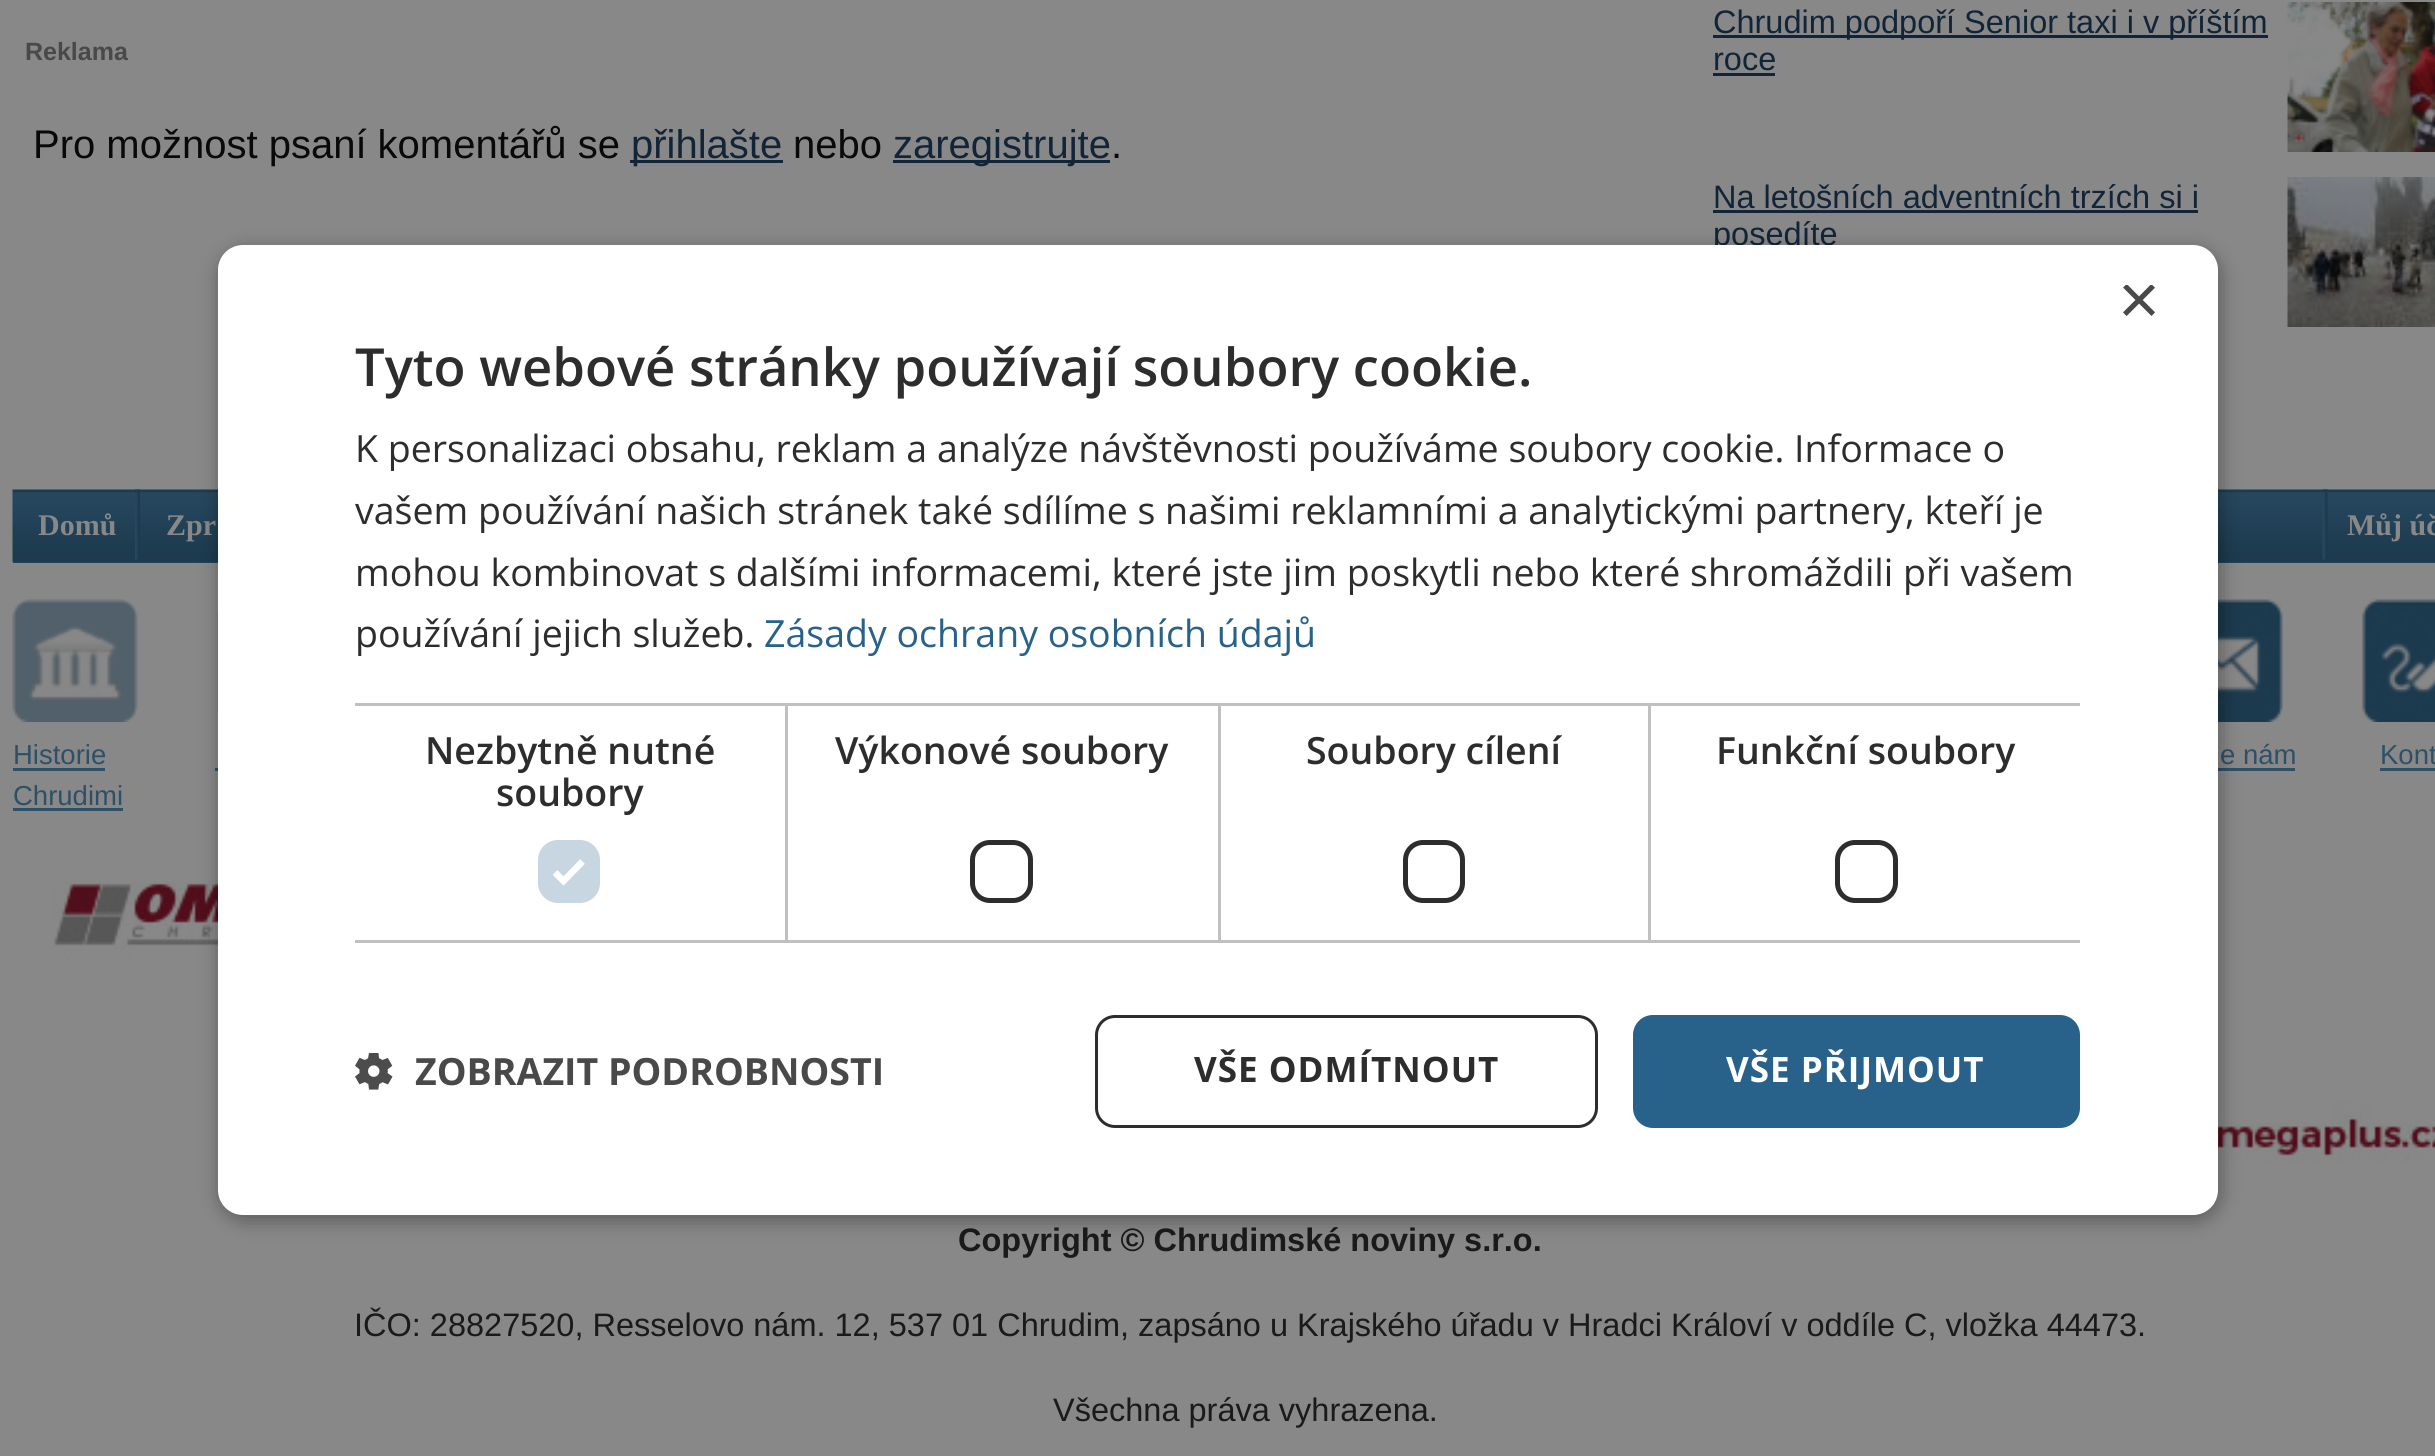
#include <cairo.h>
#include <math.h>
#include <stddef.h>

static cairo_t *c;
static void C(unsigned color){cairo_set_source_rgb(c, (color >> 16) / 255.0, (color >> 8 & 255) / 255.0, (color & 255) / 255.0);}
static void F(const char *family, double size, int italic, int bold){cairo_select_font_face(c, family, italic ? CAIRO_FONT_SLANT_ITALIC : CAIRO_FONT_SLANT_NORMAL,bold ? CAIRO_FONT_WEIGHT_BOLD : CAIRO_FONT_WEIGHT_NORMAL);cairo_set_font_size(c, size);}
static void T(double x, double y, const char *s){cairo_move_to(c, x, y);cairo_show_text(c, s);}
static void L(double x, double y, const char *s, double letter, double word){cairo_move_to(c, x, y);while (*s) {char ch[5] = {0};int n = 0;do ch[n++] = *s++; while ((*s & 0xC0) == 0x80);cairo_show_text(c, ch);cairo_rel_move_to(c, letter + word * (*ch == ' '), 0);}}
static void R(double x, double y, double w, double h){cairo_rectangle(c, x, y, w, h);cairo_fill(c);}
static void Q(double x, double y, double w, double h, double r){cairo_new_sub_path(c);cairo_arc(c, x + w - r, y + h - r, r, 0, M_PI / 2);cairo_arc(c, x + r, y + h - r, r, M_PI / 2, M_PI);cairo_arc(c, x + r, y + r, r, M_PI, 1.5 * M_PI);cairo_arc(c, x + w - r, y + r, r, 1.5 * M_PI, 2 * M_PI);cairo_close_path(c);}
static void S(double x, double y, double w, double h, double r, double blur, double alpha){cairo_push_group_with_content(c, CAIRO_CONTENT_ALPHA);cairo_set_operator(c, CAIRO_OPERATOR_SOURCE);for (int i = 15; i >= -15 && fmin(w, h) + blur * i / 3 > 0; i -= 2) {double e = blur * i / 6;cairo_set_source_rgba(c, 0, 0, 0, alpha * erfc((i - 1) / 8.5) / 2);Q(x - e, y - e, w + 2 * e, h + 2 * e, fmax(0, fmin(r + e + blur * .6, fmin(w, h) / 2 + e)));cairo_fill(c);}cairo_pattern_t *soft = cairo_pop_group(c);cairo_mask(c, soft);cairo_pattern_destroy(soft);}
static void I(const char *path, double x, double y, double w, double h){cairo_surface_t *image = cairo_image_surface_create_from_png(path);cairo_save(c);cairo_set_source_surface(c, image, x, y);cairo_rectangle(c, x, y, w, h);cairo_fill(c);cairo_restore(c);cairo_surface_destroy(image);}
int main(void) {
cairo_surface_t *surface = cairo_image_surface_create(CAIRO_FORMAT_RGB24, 2435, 1456);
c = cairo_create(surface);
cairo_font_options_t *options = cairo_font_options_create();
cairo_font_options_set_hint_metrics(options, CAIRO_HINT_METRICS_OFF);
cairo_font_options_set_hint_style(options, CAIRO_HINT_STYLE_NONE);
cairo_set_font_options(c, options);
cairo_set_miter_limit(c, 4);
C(0x888888);
cairo_paint(c);
F("Liberation Sans",25,0,1);
C(0x494949);
T(25,60,"Reklama");
F("Liberation Sans",40,0,0);
C(0x090909);
T(33,158,"Pro možnost psaní komentářů se");
C(0x122438);
R(630,160,153,3);
T(631,158,"přihlašte");
C(0x090909);
T(793,158,"nebo");
C(0x122438);
R(893,160,217,3);
T(893,158,"zaregistrujte");
C(0x090909);
T(1111,158,".");
C(0x122438);
R(1713,35,555,3);
F("Liberation Sans",32.5,0,0);
T(1713,33,"Chrudim podpoří Senior taxi i v příštím");
T(1713,70,"roce");
R(1713,73,62,3);
I("1.png",2287,2,148,150);
T(1713,208,"Na letošních adventních trzích si i");
R(1713,210,485,3);
T(1713,245,"posedíte");
I("2.png",2287,177,148,150);
C(0x224257);
R(13,562,2422,1);
I("3.png",12,489,2423,73);
I("4.png",135,489,5,71);
F("Liberation Serif",30,0,1);
C(0x888888);
T(38,535,"Domů");
T(166,535,"Zpr");
I("5.png",2322,489,6,71);
T(2347,535,"Můj úč");
I("6.png",12,599,126,123);
F("Liberation Sans",27.5,0,0);
C(0x2e5067);
T(13,764,"Historie");
R(13,768,92,3);
T(13,805,"Chrudimi");
R(13,808,110,3);
I("7.png",217,611,1,101);
R(215,768,3,3);
I("8.png",2218,599,65,123);
T(2220,764,"e nám");
R(2218,768,77,3);
I("9.png",2362,599,73,123);
T(2380,764,"Kont");
R(2380,768,55,3);
I("10.png",53,882,2382,280);
F("Liberation Sans",32.5,0,1);
C(0x1a1a1a);
T(958,1251,"Copyright © Chrudimské noviny s.r.o.");
F("Liberation Sans",32.5,0,0);
T(354,1336,"IČO: 28827520, Resselovo nám. 12, 537 01 Chrudim, zapsáno u Krajského úřadu v Hradci Královí v oddíle C, vložka 44473.");
T(1053,1421,"Všechna práva vyhrazena.");
C(0x000000);
S(220,250,2000,970,25,10,.35);
C(0xffffff);
Q(218,245,2000,970,25);
cairo_fill(c);
cairo_save(c);
cairo_rectangle(c,2118,285,37,38);
cairo_clip(c);
F("Liberation Sans",72,0,0);
C(0x494949);
T(2118,324,"×");
cairo_restore(c);
F("Open Sans SemiBold",52.5,0,0);
C(0x2d2d2d);
T(355,386,"Tyto webové stránky používají soubory cookie.");
F("Open Sans",37.5,0,0);
T(355,462,"K personalizaci obsahu, reklam a analýze návštěvnosti používáme soubory cookie. Informace o");
T(355,524,"vašem používání našich stránek také sdílíme s našimi reklamními a analytickými partnery, kteří je");
T(355,586,"mohou kombinovat s dalšími informacemi, které jste jim poskytli nebo které shromáždili při vašem");
T(355,647,"používání jejich služeb.");
C(0x28628a);
T(764,647,"Zásady ochrany osobních údajů");
C(0xc0c0c0);
R(355,703,865,3);
R(785,703,3,240);
R(355,940,433,3);
F("Open Sans SemiBold",37.5,0,0);
C(0x2d2d2d);
T(425,764,"Nezbytně nutné");
T(496,806,"soubory");
C(0xc7d6e1);
Q(538,840,62,63,20);
cairo_fill(c);
cairo_new_path(c);
cairo_move_to(c,555,872.5);
cairo_line_to(c,563.5,881);
cairo_line_to(c,582.5,861.5);
C(0xffffff);
cairo_set_line_width(c,6.6);
cairo_stroke(c);
C(0xc0c0c0);
R(1218,703,3,240);
R(788,940,432,3);
C(0x2d2d2d);
T(835,764,"Výkonové soubory");
Q(972.5,842.5,58,58,17.5);
cairo_set_line_width(c,5);
cairo_stroke(c);
C(0xc0c0c0);
R(1220,703,430,3);
R(1648,703,3,240);
R(1220,940,860,3);
C(0x2d2d2d);
T(1306,764,"Soubory cílení");
Q(1405.5,842.5,57,58,17.5);
cairo_stroke(c);
C(0xc0c0c0);
R(1650,703,430,3);
C(0x2d2d2d);
T(1716,764,"Funkční soubory");
Q(1837.5,842.5,58,58,17.5);
cairo_stroke(c);
I("11.png",355,1053,38,37);
F("Open Sans",37.5,0,1);
C(0x494949);
T(415,1085,"ZOBRAZIT PODROBNOSTI");
Q(1096.5,1016.5,500,110,18.5);
C(0x2d2d2d);
cairo_set_line_width(c,3);
cairo_stroke(c);
F("Open Sans",35,0,1);
L(1194,1082,"VŠE ODMÍTNOUT",1,0);
C(0x28628a);
Q(1633,1015,447,113,20);
cairo_fill(c);
C(0xffffff);
L(1726,1082,"VŠE PŘIJMOUT",1,0);
cairo_surface_write_to_png(surface, "o.png");
cairo_font_options_destroy(options);
cairo_destroy(c);
cairo_surface_destroy(surface);
return 0;
}
